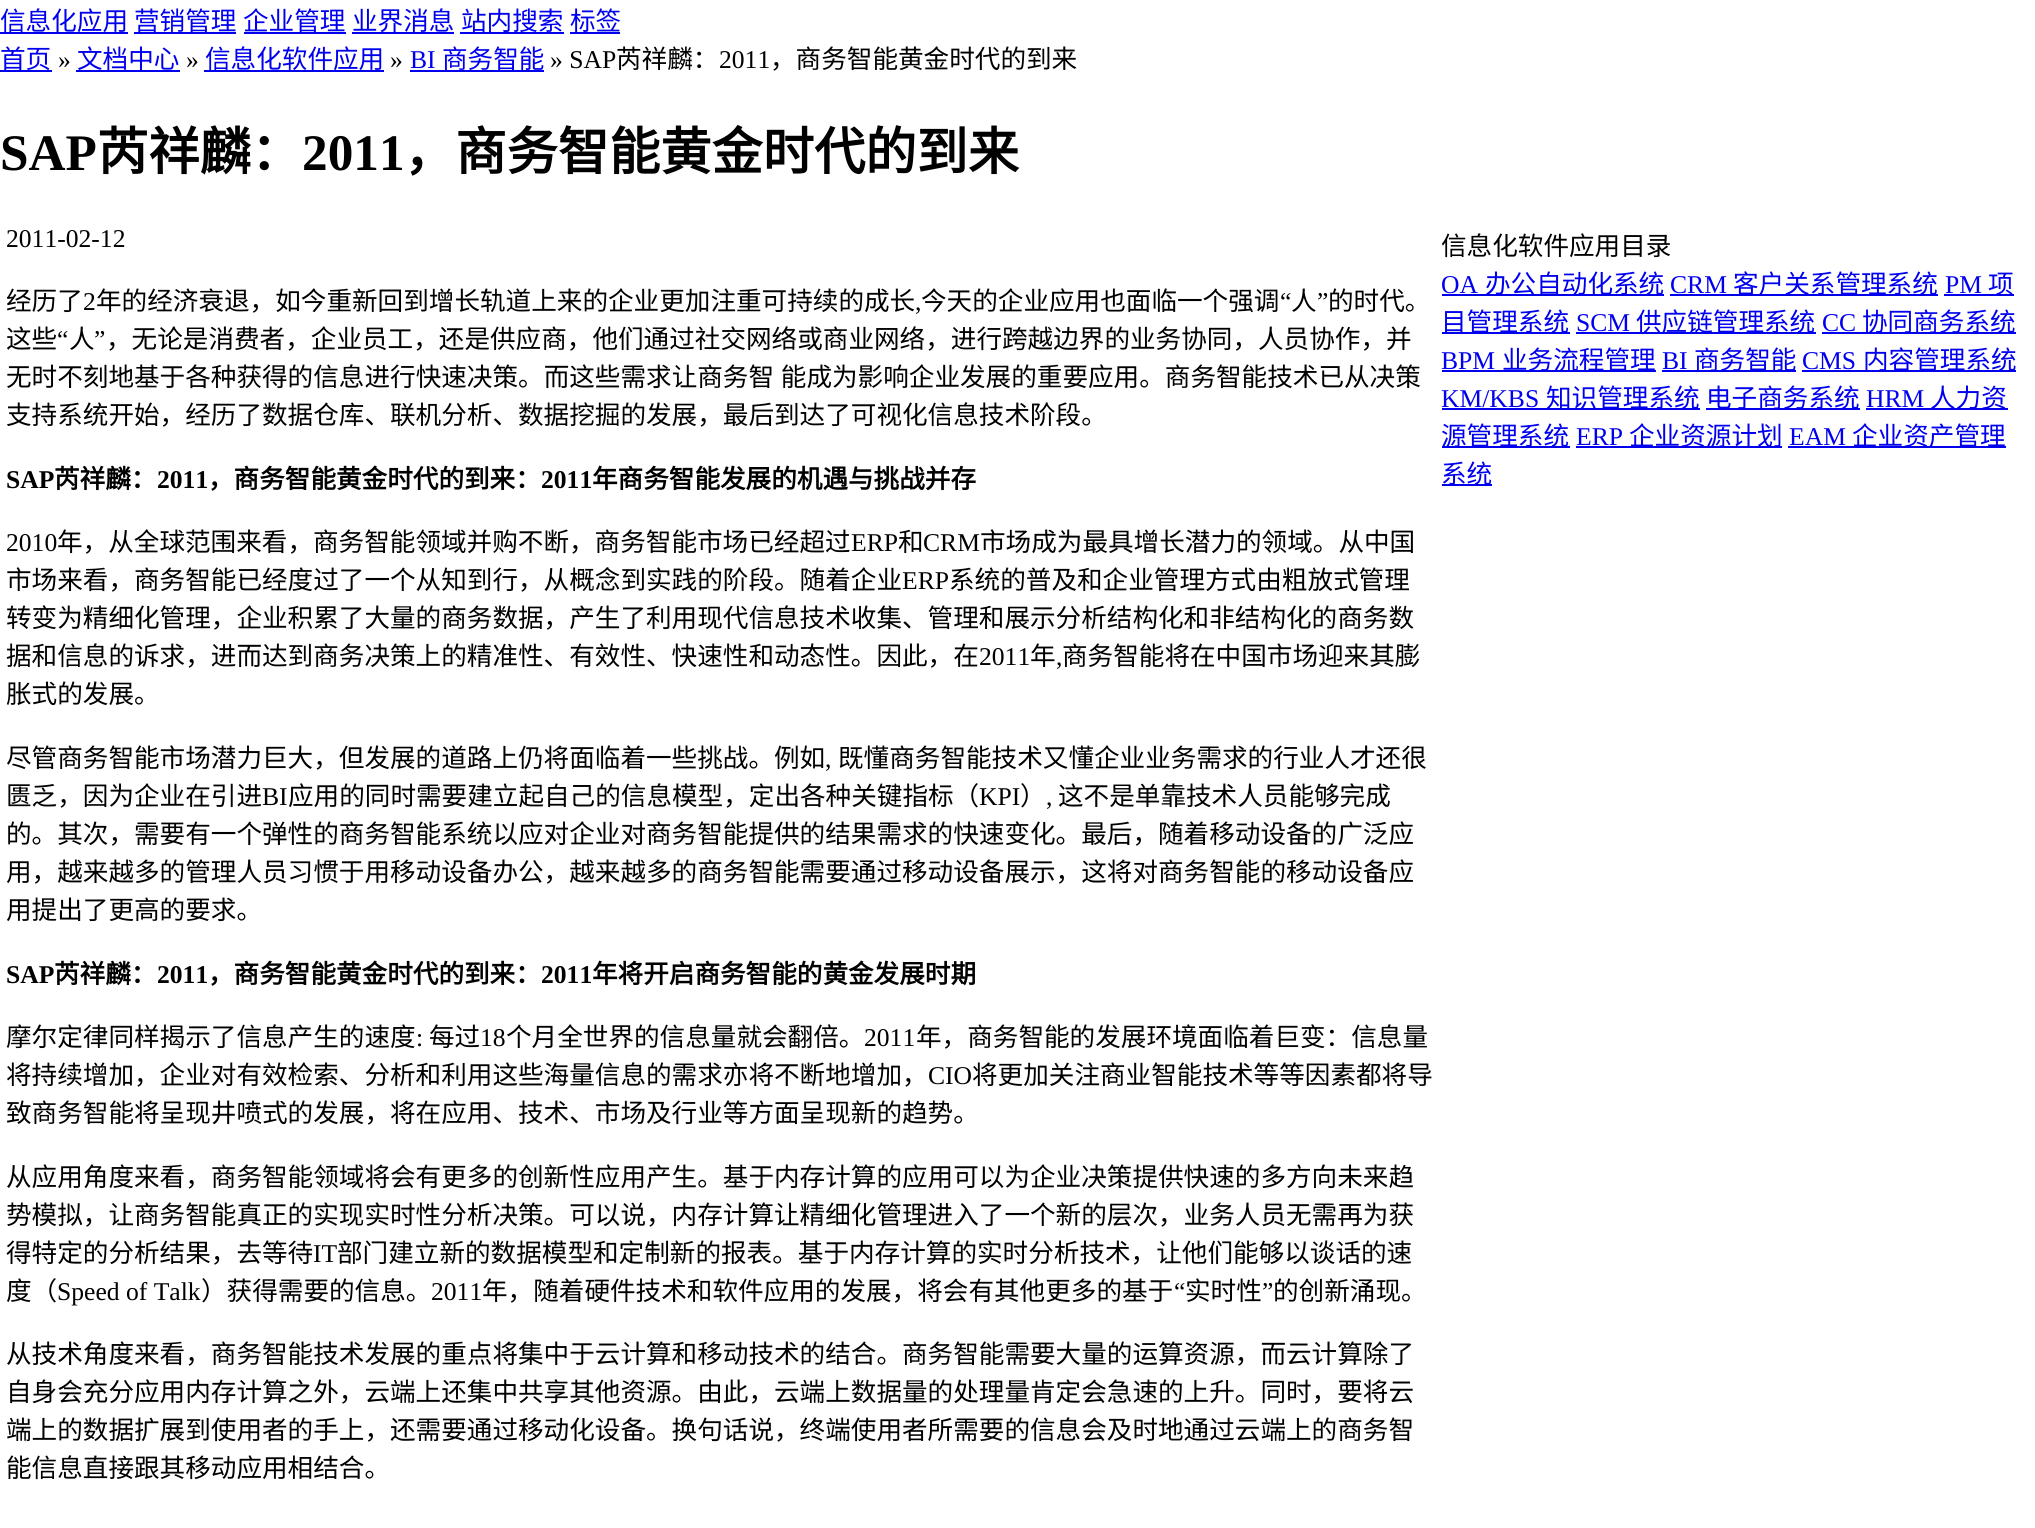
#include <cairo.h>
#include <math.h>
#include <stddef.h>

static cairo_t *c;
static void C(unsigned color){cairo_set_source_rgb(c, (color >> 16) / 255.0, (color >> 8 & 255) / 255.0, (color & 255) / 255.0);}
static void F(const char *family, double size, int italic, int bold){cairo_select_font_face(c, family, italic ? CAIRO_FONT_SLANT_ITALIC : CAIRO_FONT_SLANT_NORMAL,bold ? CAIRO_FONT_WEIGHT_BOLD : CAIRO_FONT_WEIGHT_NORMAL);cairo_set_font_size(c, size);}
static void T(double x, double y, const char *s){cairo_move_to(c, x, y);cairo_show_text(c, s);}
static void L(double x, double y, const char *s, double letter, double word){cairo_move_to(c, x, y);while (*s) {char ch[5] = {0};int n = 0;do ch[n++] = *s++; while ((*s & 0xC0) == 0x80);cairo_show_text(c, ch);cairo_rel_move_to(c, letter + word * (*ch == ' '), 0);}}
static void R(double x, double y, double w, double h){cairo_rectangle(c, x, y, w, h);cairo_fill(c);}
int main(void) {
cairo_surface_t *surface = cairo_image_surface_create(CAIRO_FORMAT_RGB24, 2035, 1528);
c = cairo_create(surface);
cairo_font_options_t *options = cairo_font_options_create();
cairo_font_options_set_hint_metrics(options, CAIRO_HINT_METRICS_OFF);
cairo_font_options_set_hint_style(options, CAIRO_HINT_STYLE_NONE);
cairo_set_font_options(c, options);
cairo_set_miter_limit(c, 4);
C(0xffffff);
cairo_paint(c);
C(0x0000ee);
R(0,32,128,2);
F("Noto Sans CJK SC",25.6,0,0);
T(0,30,"信息化应用");
R(134,32,102,2);
T(134,30,"营销管理");
R(244,32,102,2);
T(243,30,"企业管理");
R(352,32,102,2);
T(352,30,"业界消息");
R(460,32,104,2);
T(461,30,"站内搜索");
T(570,30,"标签");
R(570,32,50,2);
R(0,70,52,2);
T(0,68,"首页");
F("Liberation Serif",25.6,0,0);
C(0x000000);
T(58,68,"»");
F("Noto Sans CJK SC",25.6,0,0);
C(0x0000ee);
T(77,68,"文档中心");
R(76,70,104,2);
F("Liberation Serif",25.6,0,0);
C(0x000000);
T(186,68,"»");
C(0x0000ee);
R(204,70,180,2);
F("Noto Sans CJK SC",25.6,0,0);
T(205,68,"信息化软件应用");
F("Liberation Serif",25.6,0,0);
C(0x000000);
T(390,68,"»");
C(0x0000ee);
T(410,68,"BI");
R(410,70,134,2);
F("Noto Sans CJK SC",25.6,0,0);
T(442,68,"商务智能");
F("Liberation Serif",25.6,0,0);
C(0x000000);
T(550,68,"» SAP");
F("Noto Sans CJK SC",25.6,0,0);
T(616,68,"芮祥麟：");
F("Liberation Serif",25.6,0,0);
T(719,68,"2011");
F("Noto Sans CJK SC",25.6,0,0);
T(770,68,"，商务智能黄金时代的到来");
F("Liberation Serif",51.25,0,1);
T(0,170,"SAP");
F("Noto Sans CJK SC",51.25,0,1);
T(97,170,"芮祥麟：");
F("Liberation Serif",51.25,0,1);
T(302,170,"2011");
F("Noto Sans CJK SC",51.25,0,1);
T(404,170,"，商务智能黄金时代的到来");
F("Liberation Serif",25.6,0,0);
T(6,247,"2011-02-12");
F("Noto Sans CJK SC",25.6,0,0);
T(6,310,"经历了");
F("Liberation Serif",25.6,0,0);
T(83,310,"2");
F("Noto Sans CJK SC",25.6,0,0);
T(96,310,"年的经济衰退，如今重新回到增长轨道上来的企业更加注重可持续的成长");
T(921,310,"今天的企业应用也面临一个强调");
F("Liberation Serif",25.6,0,0);
T(1280,310,"“");
F("Noto Sans CJK SC",25.6,0,0);
T(1291,310,"人");
F("Liberation Serif",25.6,0,0);
T(1317,310,"”");
F("Noto Sans CJK SC",25.6,0,0);
T(1328,310,"的时代。");
F("Liberation Serif",25.6,0,0);
T(915,310,",");
F("Noto Sans CJK SC",25.6,0,0);
T(6,348,"这些");
F("Liberation Serif",25.6,0,0);
T(57,348,"“");
F("Noto Sans CJK SC",25.6,0,0);
T(69,348,"人");
F("Liberation Serif",25.6,0,0);
T(94,348,"”");
F("Noto Sans CJK SC",25.6,0,0);
T(106,348,"，无论是消费者，企业员工，还是供应商，他们通过社交网络或商业网络，进行跨越边界的业务协同，人员协作，并");
L(6,386,"无时不刻地基于各种获得的信息进行快速决策。而这些需求让商务智 能成为影响企业发展的重要应用。商务智能技术已从决策",0,1);
T(6,424,"支持系统开始，经历了数据仓库、联机分析、数据挖掘的发展，最后到达了可视化信息技术阶段。");
F("Liberation Serif",25.6,0,1);
T(6,488,"SAP");
F("Noto Sans CJK SC",25.6,0,1);
T(54,488,"芮祥麟：");
F("Liberation Serif",25.6,0,1);
T(157,488,"2011");
F("Noto Sans CJK SC",25.6,0,1);
T(208,488,"，商务智能黄金时代的到来：");
F("Liberation Serif",25.6,0,1);
T(541,488,"2011");
F("Noto Sans CJK SC",25.6,0,1);
T(592,488,"年商务智能发展的机遇与挑战并存");
F("Liberation Serif",25.6,0,0);
T(6,551,"2010");
F("Noto Sans CJK SC",25.6,0,0);
T(57,551,"年，从全球范围来看，商务智能领域并购不断，商务智能市场已经超过");
F("Liberation Serif",25.6,0,0);
T(851,551,"ERP");
F("Noto Sans CJK SC",25.6,0,0);
T(898,551,"和");
F("Liberation Serif",25.6,0,0);
T(923,551,"CRM");
F("Noto Sans CJK SC",25.6,0,0);
T(980,551,"市场成为最具增长潜力的领域。从中国");
T(6,589,"市场来看，商务智能已经度过了一个从知到行，从概念到实践的阶段。随着企业");
F("Liberation Serif",25.6,0,0);
T(902,589,"ERP");
F("Noto Sans CJK SC",25.6,0,0);
T(949,589,"系统的普及和企业管理方式由粗放式管理");
T(6,627,"转变为精细化管理，企业积累了大量的商务数据，产生了利用现代信息技术收集、管理和展示分析结构化和非结构化的商务数");
T(6,665,"据和信息的诉求，进而达到商务决策上的精准性、有效性、快速性和动态性。因此，在");
F("Liberation Serif",25.6,0,0);
T(979,665,"2011");
F("Noto Sans CJK SC",25.6,0,0);
T(1030,665,"年");
F("Liberation Serif",25.6,0,0);
T(1056,665,",");
F("Noto Sans CJK SC",25.6,0,0);
T(1062,665,"商务智能将在中国市场迎来其膨");
T(6,703,"胀式的发展。");
T(6,767,"尽管商务智能市场潜力巨大，但发展的道路上仍将面临着一些挑战。例如");
F("Liberation Serif",25.6,0,0);
T(825,767,",");
F("Noto Sans CJK SC",25.6,0,0);
T(838,767,"既懂商务智能技术又懂企业业务需求的行业人才还很");
T(6,805,"匮乏，因为企业在引进");
F("Liberation Serif",25.6,0,0);
T(262,805,"BI");
F("Noto Sans CJK SC",25.6,0,0);
T(288,805,"应用的同时需要建立起自己的信息模型，定出各种关键指标（");
F("Liberation Serif",25.6,0,0);
T(979,805,"KPI");
F("Noto Sans CJK SC",25.6,0,0);
T(1020,805,"）");
F("Liberation Serif",25.6,0,0);
T(1046,805,",");
F("Noto Sans CJK SC",25.6,0,0);
T(1058,805,"这不是单靠技术人员能够完成");
T(6,843,"的。其次，需要有一个弹性的商务智能系统以应对企业对商务智能提供的结果需求的快速变化。最后，随着移动设备的广泛应");
T(6,881,"用，越来越多的管理人员习惯于用移动设备办公，越来越多的商务智能需要通过移动设备展示，这将对商务智能的移动设备应");
T(6,919,"用提出了更高的要求。");
F("Liberation Serif",25.6,0,1);
T(6,983,"SAP");
F("Noto Sans CJK SC",25.6,0,1);
T(54,983,"芮祥麟：");
F("Liberation Serif",25.6,0,1);
T(157,983,"2011");
F("Noto Sans CJK SC",25.6,0,1);
T(208,983,"，商务智能黄金时代的到来：");
F("Liberation Serif",25.6,0,1);
T(541,983,"2011");
F("Noto Sans CJK SC",25.6,0,1);
T(592,983,"年将开启商务智能的黄金发展时期");
F("Noto Sans CJK SC",25.6,0,0);
T(6,1046,"摩尔定律同样揭示了信息产生的速度");
F("Liberation Serif",25.6,0,0);
T(416,1046,":");
F("Noto Sans CJK SC",25.6,0,0);
T(429,1046,"每过");
F("Liberation Serif",25.6,0,0);
T(480,1046,"18");
F("Noto Sans CJK SC",25.6,0,0);
T(506,1046,"个月全世界的信息量就会翻倍。");
F("Liberation Serif",25.6,0,0);
T(864,1046,"2011");
F("Noto Sans CJK SC",25.6,0,0);
T(916,1046,"年，商务智能的发展环境面临着巨变：信息量");
T(6,1084,"将持续增加，企业对有效检索、分析和利用这些海量信息的需求亦将不断地增加，");
F("Liberation Serif",25.6,0,0);
T(928,1084,"CIO");
F("Noto Sans CJK SC",25.6,0,0);
T(972,1084,"将更加关注商业智能技术等等因素都将导");
T(6,1122,"致商务智能将呈现井喷式的发展，将在应用、技术、市场及行业等方面呈现新的趋势。");
T(6,1186,"从应用角度来看，商务智能领域将会有更多的创新性应用产生。基于内存计算的应用可以为企业决策提供快速的多方向未来趋");
T(6,1224,"势模拟，让商务智能真正的实现实时性分析决策。可以说，内存计算让精细化管理进入了一个新的层次，业务人员无需再为获");
T(6,1262,"得特定的分析结果，去等待");
F("Liberation Serif",25.6,0,0);
T(313,1262,"IT");
F("Noto Sans CJK SC",25.6,0,0);
T(337,1262,"部门建立新的数据模型和定制新的报表。基于内存计算的实时分析技术，让他们能够以谈话的速");
T(6,1300,"度（");
F("Liberation Serif",25.6,0,0);
T(57,1300,"Speed of Talk");
F("Noto Sans CJK SC",25.6,0,0);
T(201,1300,"）获得需要的信息。");
F("Liberation Serif",25.6,0,0);
T(431,1300,"2011");
F("Noto Sans CJK SC",25.6,0,0);
T(482,1300,"年，随着硬件技术和软件应用的发展，将会有其他更多的基于");
F("Liberation Serif",25.6,0,0);
T(1174,1300,"“");
F("Noto Sans CJK SC",25.6,0,0);
T(1185,1300,"实时性");
F("Liberation Serif",25.6,0,0);
T(1262,1300,"”");
F("Noto Sans CJK SC",25.6,0,0);
T(1273,1300,"的创新涌现。");
T(6,1363,"从技术角度来看，商务智能技术发展的重点将集中于云计算和移动技术的结合。商务智能需要大量的运算资源，而云计算除了");
T(6,1401,"自身会充分应用内存计算之外，云端上还集中共享其他资源。由此，云端上数据量的处理量肯定会急速的上升。同时，要将云");
T(6,1439,"端上的数据扩展到使用者的手上，还需要通过移动化设备。换句话说，终端使用者所需要的信息会及时地通过云端上的商务智");
T(6,1477,"能信息直接跟其移动应用相结合。");
T(1441,255,"信息化软件应用目录");
F("Liberation Serif",25.6,0,0);
C(0x0000ee);
T(1441,293,"OA");
R(1442,294,222,2);
F("Noto Sans CJK SC",25.6,0,0);
T(1485,293,"办公自动化系统");
F("Liberation Serif",25.6,0,0);
T(1670,293,"CRM");
R(1670,294,268,2);
F("Noto Sans CJK SC",25.6,0,0);
T(1733,293,"客户关系管理系统");
F("Liberation Serif",25.6,0,0);
T(1945,293,"PM");
R(1944,294,70,2);
F("Noto Sans CJK SC",25.6,0,0);
T(1988,293,"项");
R(1442,332,128,2);
T(1441,331,"目管理系统");
F("Liberation Serif",25.6,0,0);
T(1576,331,"SCM");
R(1576,332,240,2);
F("Noto Sans CJK SC",25.6,0,0);
T(1636,331,"供应链管理系统");
F("Liberation Serif",25.6,0,0);
T(1822,331,"CC");
R(1822,332,194,2);
F("Noto Sans CJK SC",25.6,0,0);
T(1862,331,"协同商务系统");
F("Liberation Serif",25.6,0,0);
T(1441,369,"BPM");
R(1442,370,214,2);
F("Noto Sans CJK SC",25.6,0,0);
T(1502,369,"业务流程管理");
F("Liberation Serif",25.6,0,0);
T(1662,369,"BI");
R(1662,370,134,2);
F("Noto Sans CJK SC",25.6,0,0);
T(1694,369,"商务智能");
F("Liberation Serif",25.6,0,0);
T(1802,369,"CMS");
R(1802,370,214,2);
F("Noto Sans CJK SC",25.6,0,0);
T(1863,369,"内容管理系统");
F("Liberation Serif",25.6,0,0);
T(1441,407,"KM/KBS");
R(1442,408,258,2);
F("Noto Sans CJK SC",25.6,0,0);
T(1546,407,"知识管理系统");
R(1706,408,154,2);
T(1706,407,"电子商务系统");
F("Liberation Serif",25.6,0,0);
T(1866,407,"HRM");
R(1866,408,142,2);
F("Noto Sans CJK SC",25.6,0,0);
T(1930,407,"人力资");
R(1442,446,128,2);
T(1441,445,"源管理系统");
F("Liberation Serif",25.6,0,0);
T(1576,445,"ERP");
R(1576,446,206,2);
F("Noto Sans CJK SC",25.6,0,0);
T(1629,445,"企业资源计划");
F("Liberation Serif",25.6,0,0);
T(1789,445,"EAM");
R(1788,446,218,2);
F("Noto Sans CJK SC",25.6,0,0);
T(1852,445,"企业资产管理");
R(1442,484,50,2);
T(1441,483,"系统");
cairo_surface_write_to_png(surface, "o.png");
cairo_font_options_destroy(options);
cairo_destroy(c);
cairo_surface_destroy(surface);
return 0;
}
